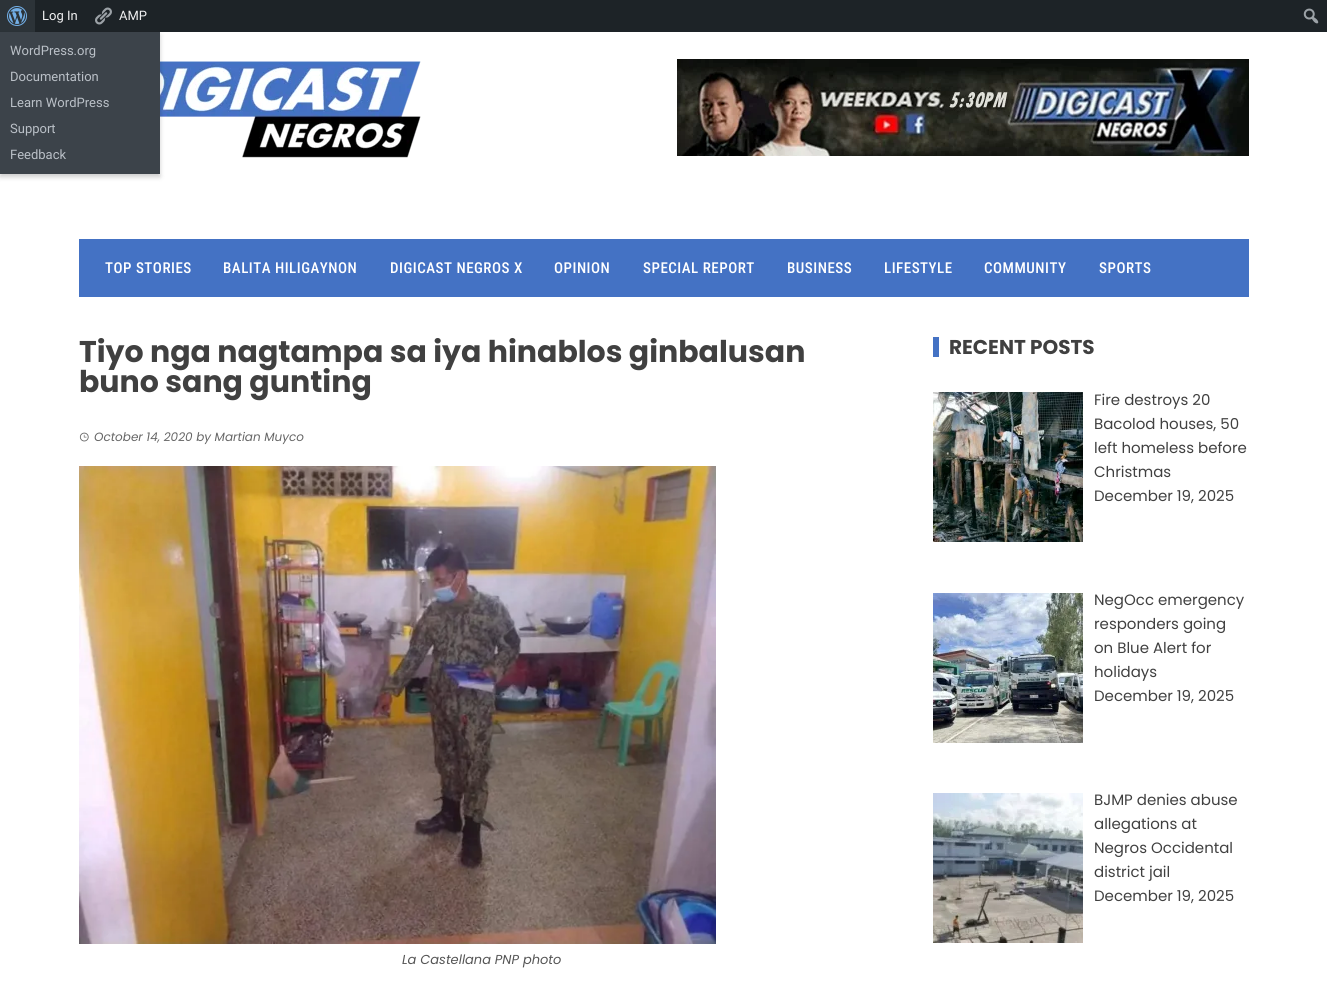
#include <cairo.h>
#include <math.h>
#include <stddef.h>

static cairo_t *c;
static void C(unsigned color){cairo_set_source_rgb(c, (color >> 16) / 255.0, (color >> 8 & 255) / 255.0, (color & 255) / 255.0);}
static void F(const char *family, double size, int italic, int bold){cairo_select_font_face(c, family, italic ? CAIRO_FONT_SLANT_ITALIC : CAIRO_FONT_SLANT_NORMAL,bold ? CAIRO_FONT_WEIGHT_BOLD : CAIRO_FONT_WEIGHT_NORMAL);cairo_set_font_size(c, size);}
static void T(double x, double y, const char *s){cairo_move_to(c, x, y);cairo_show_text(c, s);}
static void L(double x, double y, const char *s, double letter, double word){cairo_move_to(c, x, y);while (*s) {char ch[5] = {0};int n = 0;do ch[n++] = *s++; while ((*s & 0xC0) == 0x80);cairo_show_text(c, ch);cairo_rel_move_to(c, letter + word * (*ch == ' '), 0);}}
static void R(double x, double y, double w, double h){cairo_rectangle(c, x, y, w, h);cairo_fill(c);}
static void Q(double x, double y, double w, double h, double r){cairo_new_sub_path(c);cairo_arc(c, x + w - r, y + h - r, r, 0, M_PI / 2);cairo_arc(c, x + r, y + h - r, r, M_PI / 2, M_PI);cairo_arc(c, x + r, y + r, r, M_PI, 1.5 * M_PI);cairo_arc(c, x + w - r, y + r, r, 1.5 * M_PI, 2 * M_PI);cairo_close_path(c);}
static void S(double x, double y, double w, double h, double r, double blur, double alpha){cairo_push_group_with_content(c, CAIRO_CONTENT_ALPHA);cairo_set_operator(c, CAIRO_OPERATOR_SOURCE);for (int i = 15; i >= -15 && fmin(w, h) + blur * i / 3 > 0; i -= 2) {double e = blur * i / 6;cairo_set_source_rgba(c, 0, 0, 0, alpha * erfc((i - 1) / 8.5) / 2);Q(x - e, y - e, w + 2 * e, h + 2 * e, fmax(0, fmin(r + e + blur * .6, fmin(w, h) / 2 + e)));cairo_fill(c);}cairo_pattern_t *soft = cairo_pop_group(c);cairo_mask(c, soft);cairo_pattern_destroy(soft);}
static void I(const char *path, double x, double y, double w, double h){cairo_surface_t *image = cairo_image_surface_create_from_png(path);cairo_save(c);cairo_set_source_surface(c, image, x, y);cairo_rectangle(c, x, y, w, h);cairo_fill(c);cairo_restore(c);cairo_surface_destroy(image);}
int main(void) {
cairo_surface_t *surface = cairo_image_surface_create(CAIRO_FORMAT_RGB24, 1327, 991);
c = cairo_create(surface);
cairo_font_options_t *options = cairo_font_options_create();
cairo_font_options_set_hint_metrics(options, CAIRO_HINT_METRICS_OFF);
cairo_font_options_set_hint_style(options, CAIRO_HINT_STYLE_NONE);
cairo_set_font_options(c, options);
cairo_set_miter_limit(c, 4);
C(0xffffff);
cairo_paint(c);
C(0x1d2327);
R(35,0,1292,32);
F("Roboto",13,0,0);
C(0xf0f0f1);
T(42,20,"Log In");
I("1.png",95,7,17,18);
T(119,20,"AMP");
C(0x2c3338);
R(0,0,35,32);
I("2.png",7,6,20,20);
I("4.png",160,61,261,97);
C(0x000000);
S(0,35,160,142,0,2.5,.2);
C(0x3c434a);
R(0,32,160,142);
C(0xbac0c7);
T(10,55,"WordPress.org");
T(10,81,"Documentation");
T(10,107,"Learn WordPress");
T(10,133,"Support");
T(10,159,"Feedback");
I("3.png",1303,8,16,16);
I("5.png",677,59,572,97);
C(0x4472c4);
R(79,239,1170,58);
F("Roboto Condensed Medium",15,0,0);
C(0xffffff);
L(105,273,"TOP STORIES",.5,0);
L(223,273,"BALITA HILIGAYNON",.5,0);
L(390,273,"DIGICAST NEGROS X",.5,0);
L(554,273,"OPINION",.5,0);
L(643,273,"SPECIAL REPORT",.5,0);
L(787,273,"BUSINESS",.5,0);
L(884,273,"LIFESTYLE",.5,0);
L(984,273,"COMMUNITY",.5,0);
L(1099,273,"SPORTS",.5,0);
F("Poppins",30,0,1);
C(0x404040);
T(79,362,"Tiyo nga nagtampa sa iya hinablos ginbalusan");
T(79,392,"buno sang gunting");
I("6.png",79,432,10,10);
F("Poppins",12,1,0);
C(0x666666);
T(94,441,"October 14, 2020 by Martian Muyco");
I("7.png",79,466,637,478);
F("Poppins",13,1,0);
C(0x555555);
T(402,964,"La Castellana PNP photo");
C(0x4472c4);
R(933,337,6,20);
F("Poppins",20,0,1);
C(0x404040);
T(949,354,"RECENT POSTS");
I("8.png",933,392,150,150);
F("Poppins",15,0,0);
T(1094,405,"Fire destroys 20");
T(1094,429,"Bacolod houses, 50");
T(1094,453,"left homeless before");
T(1094,477,"Christmas");
T(1094,501,"December 19, 2025");
I("9.png",933,593,150,150);
T(1094,605,"NegOcc emergency");
T(1094,629,"responders going");
T(1094,653,"on Blue Alert for");
T(1094,677,"holidays");
T(1094,701,"December 19, 2025");
I("10.png",933,793,150,150);
T(1094,805,"BJMP denies abuse");
T(1094,829,"allegations at");
T(1094,853,"Negros Occidental");
T(1094,877,"district jail");
T(1094,901,"December 19, 2025");
cairo_surface_write_to_png(surface, "o.png");
cairo_font_options_destroy(options);
cairo_destroy(c);
cairo_surface_destroy(surface);
return 0;
}
